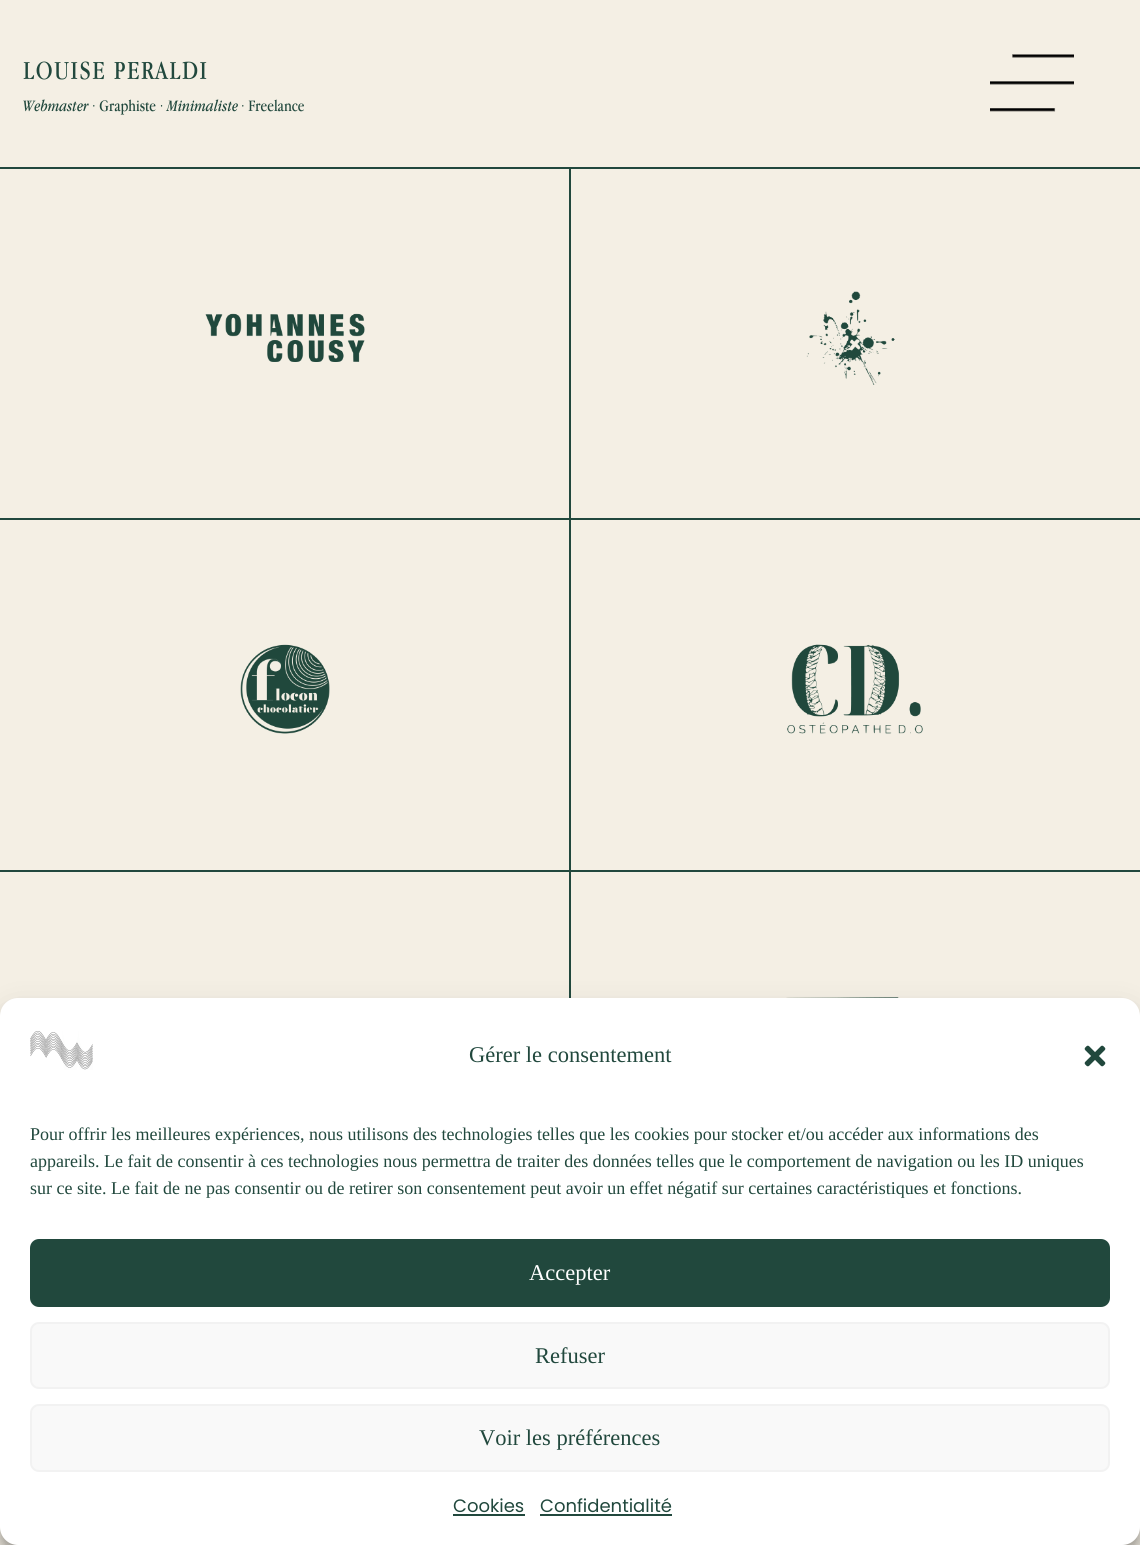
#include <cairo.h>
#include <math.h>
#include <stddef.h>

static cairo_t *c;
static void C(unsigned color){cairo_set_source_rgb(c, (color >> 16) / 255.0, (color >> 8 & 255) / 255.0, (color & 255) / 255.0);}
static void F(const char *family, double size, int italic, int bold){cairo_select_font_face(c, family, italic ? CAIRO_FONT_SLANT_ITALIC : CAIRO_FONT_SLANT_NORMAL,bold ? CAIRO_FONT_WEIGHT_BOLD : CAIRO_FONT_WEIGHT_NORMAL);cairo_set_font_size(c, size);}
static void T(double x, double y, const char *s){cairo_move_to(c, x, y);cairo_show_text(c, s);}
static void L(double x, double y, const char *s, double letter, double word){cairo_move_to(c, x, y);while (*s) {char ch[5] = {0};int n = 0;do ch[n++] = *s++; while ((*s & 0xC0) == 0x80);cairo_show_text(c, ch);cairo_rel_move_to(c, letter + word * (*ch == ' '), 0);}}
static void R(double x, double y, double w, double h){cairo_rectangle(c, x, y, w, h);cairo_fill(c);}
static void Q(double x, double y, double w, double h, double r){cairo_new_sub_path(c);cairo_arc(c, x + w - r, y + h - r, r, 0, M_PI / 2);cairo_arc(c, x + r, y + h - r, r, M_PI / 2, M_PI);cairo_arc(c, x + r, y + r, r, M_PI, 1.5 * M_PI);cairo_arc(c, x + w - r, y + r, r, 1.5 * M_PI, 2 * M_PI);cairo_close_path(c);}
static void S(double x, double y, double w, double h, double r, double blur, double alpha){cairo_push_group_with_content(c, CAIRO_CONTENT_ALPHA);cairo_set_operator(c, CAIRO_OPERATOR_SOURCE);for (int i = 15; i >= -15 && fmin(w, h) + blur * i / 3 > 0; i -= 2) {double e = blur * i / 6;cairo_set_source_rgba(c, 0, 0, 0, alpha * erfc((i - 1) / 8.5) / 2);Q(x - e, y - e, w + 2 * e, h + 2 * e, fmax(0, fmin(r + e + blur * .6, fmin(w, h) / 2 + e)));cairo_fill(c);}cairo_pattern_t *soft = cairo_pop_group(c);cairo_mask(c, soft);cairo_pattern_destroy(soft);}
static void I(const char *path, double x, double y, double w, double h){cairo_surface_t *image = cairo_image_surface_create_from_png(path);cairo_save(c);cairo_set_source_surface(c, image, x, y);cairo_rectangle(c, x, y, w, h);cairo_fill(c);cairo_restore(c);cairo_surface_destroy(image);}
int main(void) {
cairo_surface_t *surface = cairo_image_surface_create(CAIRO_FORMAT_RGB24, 1140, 1545);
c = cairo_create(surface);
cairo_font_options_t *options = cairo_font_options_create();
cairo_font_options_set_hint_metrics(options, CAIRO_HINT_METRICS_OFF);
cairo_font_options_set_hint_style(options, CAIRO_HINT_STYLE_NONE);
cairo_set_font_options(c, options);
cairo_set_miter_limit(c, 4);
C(0xf4efe4);
cairo_paint(c);
C(0x21483d);
R(0,167,1140,2);
F("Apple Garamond",27,0,0);
L(23,79,"LOUISE PERALDI",1.5,0);
F("Apple Garamond",16.5,1,0);
T(23,111,"Webmaster");
F("Apple Garamond",16.5,0,0);
T(92,111,"· Graphiste ·");
F("Apple Garamond",16.5,1,0);
T(167,111,"Minimaliste");
F("Apple Garamond",16.5,0,0);
T(241,111,"· Freelance");
I("1.png",990,54,84,58);
R(569,168,2,351);
R(0,518,1140,2);
I("2.png",205,313,160,49);
I("3.png",806,291,89,94);
R(569,519,2,479);
R(0,870,1140,2);
I("4.png",240,644,90,90);
I("5.png",787,644,136,90);
I("6.png",786,997,113,1);
C(0x000000);
S(0,1007,1140,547,18,4.5,.23);
S(0,1013,1140,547,18,15,.19);
C(0xffffff);
Q(0,998,1140,547,18);
cairo_fill(c);
I("7.png",30,1031,63,39);
F("Liberation Serif",22.5,0,0);
C(0x21483d);
T(469,1062,"Gérer le consentement");
I("8.png",1084,1045,22,22);
F("Liberation Serif",18,0,0);
T(30,1140,"Pour offrir les meilleures expériences, nous utilisons des technologies telles que les cookies pour stocker et/ou accéder aux informations des");
T(30,1167,"appareils. Le fait de consentir à ces technologies nous permettra de traiter des données telles que le comportement de navigation ou les ID uniques");
T(30,1194,"sur ce site. Le fait de ne pas consentir ou de retirer son consentement peut avoir un effet négatif sur certaines caractéristiques et fonctions.");
Q(31,1240,1078,66,8);
cairo_fill_preserve(c);
cairo_stroke(c);
F("Liberation Serif",22.5,0,0);
C(0xffffff);
T(529,1280,"Accepter");
C(0xf9f9f9);
Q(31,1323,1078,65,8);
cairo_fill_preserve(c);
C(0xf2f2f2);
cairo_stroke(c);
C(0x21483d);
T(535,1363,"Refuser");
C(0xf9f9f9);
Q(31,1405,1078,66,8);
cairo_fill_preserve(c);
C(0xf2f2f2);
cairo_stroke(c);
C(0x21483d);
T(479,1445,"Voir les préférences");
F("Poppins",18,0,0);
T(453,1512,"Cookies");
R(453,1514,72,2);
T(540,1512,"Confidentialité");
R(540,1514,132,2);
cairo_surface_write_to_png(surface, "o.png");
cairo_font_options_destroy(options);
cairo_destroy(c);
cairo_surface_destroy(surface);
return 0;
}
